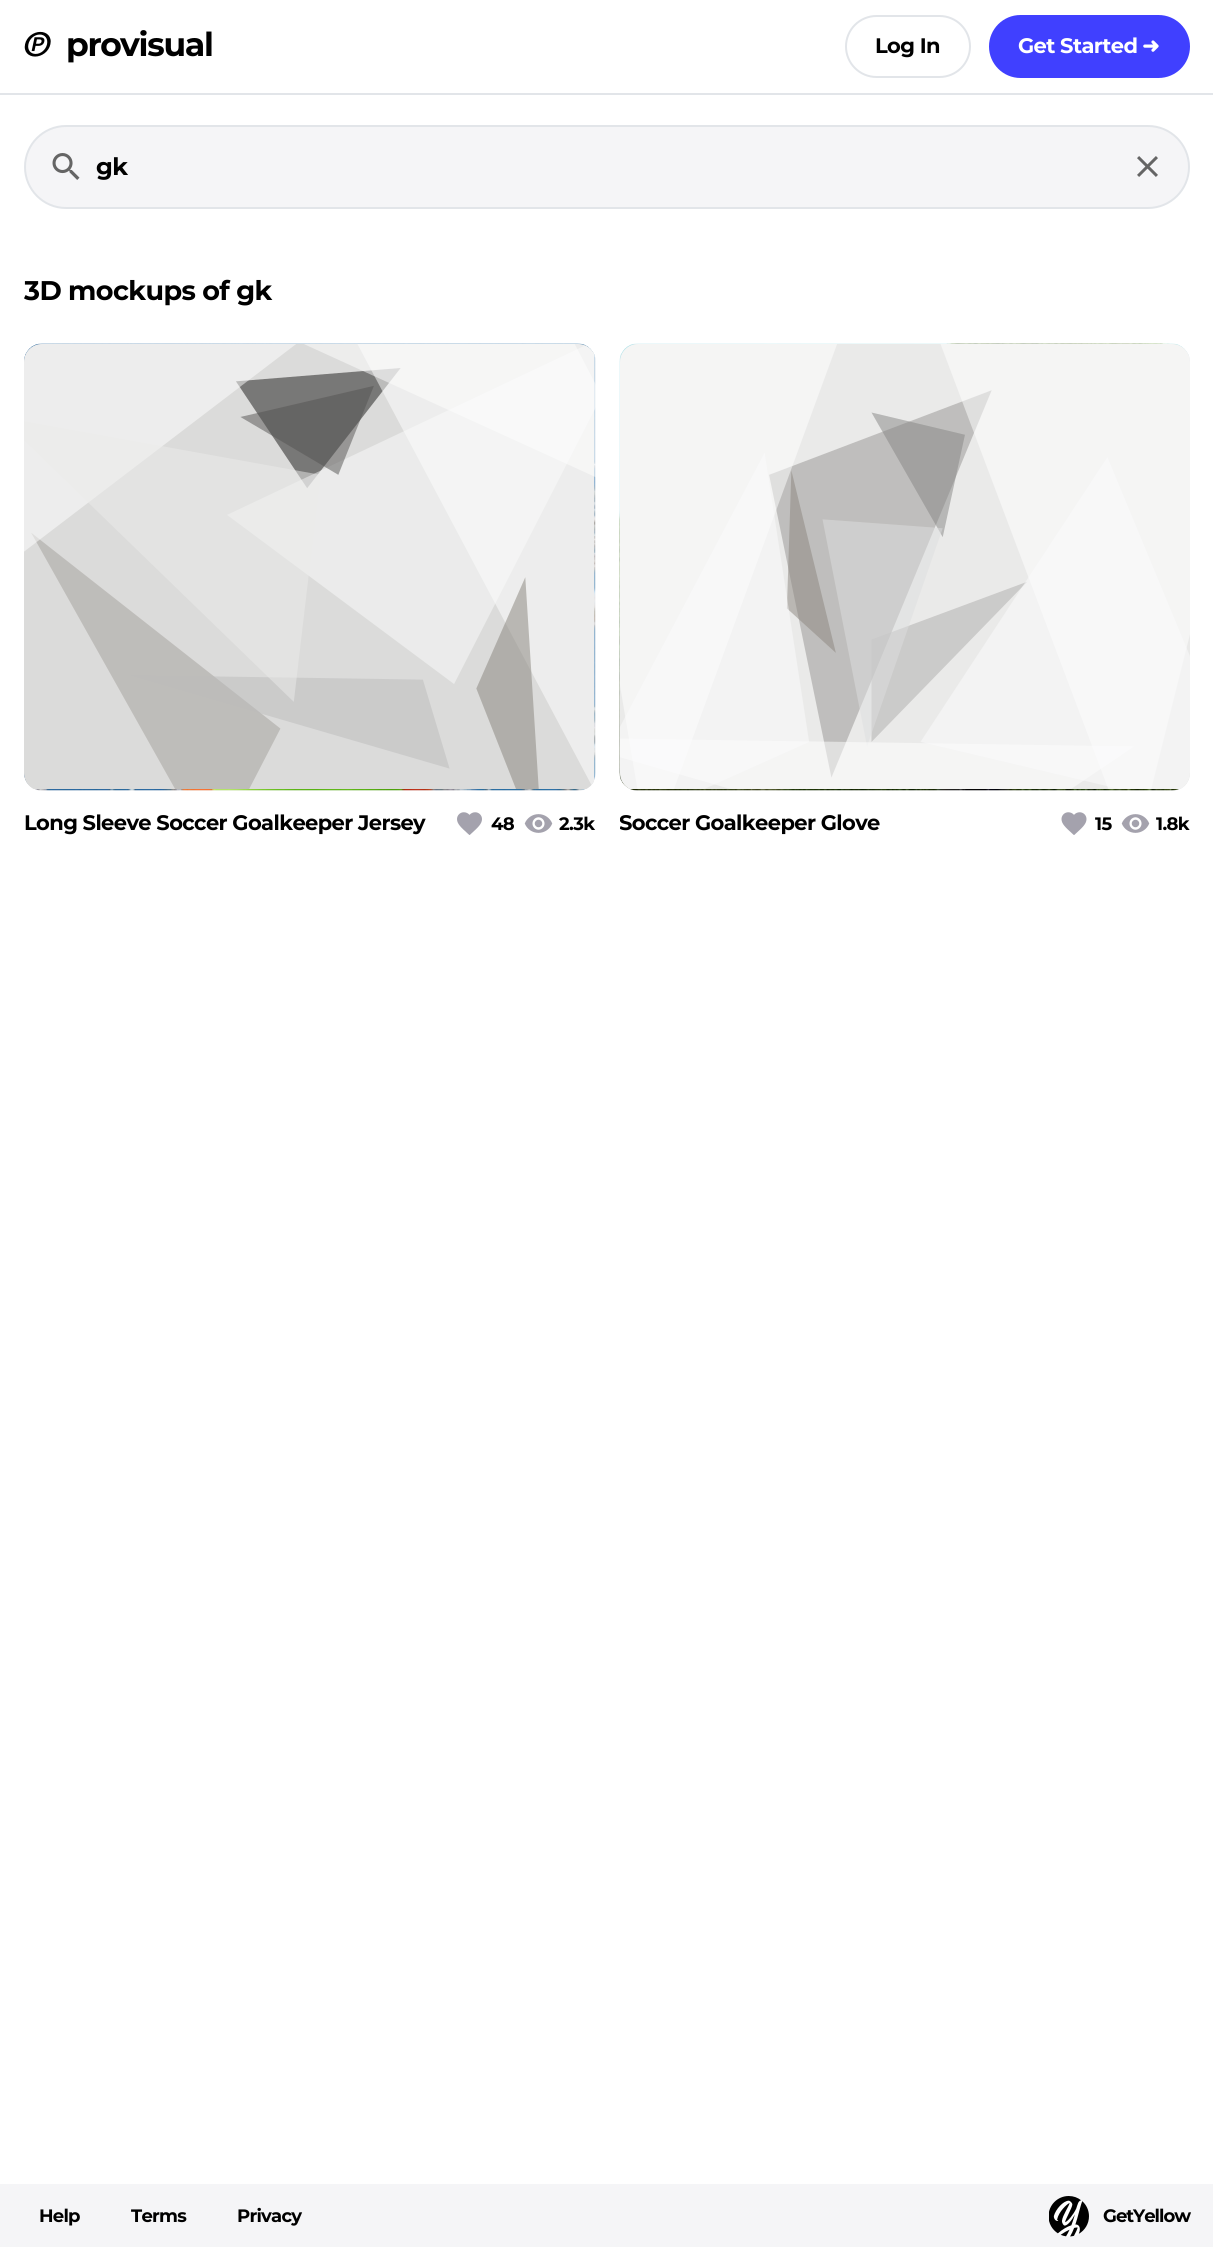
#include <cairo.h>
#include <math.h>
#include <stddef.h>

static cairo_t *c;
static void C(unsigned color){cairo_set_source_rgb(c, (color >> 16) / 255.0, (color >> 8 & 255) / 255.0, (color & 255) / 255.0);}
static void F(const char *family, double size, int italic, int bold){cairo_select_font_face(c, family, italic ? CAIRO_FONT_SLANT_ITALIC : CAIRO_FONT_SLANT_NORMAL,bold ? CAIRO_FONT_WEIGHT_BOLD : CAIRO_FONT_WEIGHT_NORMAL);cairo_set_font_size(c, size);}
static void L(double x, double y, const char *s, double letter, double word){cairo_move_to(c, x, y);while (*s) {char ch[5] = {0};int n = 0;do ch[n++] = *s++; while ((*s & 0xC0) == 0x80);cairo_show_text(c, ch);cairo_rel_move_to(c, letter + word * (*ch == ' '), 0);}}
static void R(double x, double y, double w, double h){cairo_rectangle(c, x, y, w, h);cairo_fill(c);}
static void Q(double x, double y, double w, double h, double r){cairo_new_sub_path(c);cairo_arc(c, x + w - r, y + h - r, r, 0, M_PI / 2);cairo_arc(c, x + r, y + h - r, r, M_PI / 2, M_PI);cairo_arc(c, x + r, y + r, r, M_PI, 1.5 * M_PI);cairo_arc(c, x + w - r, y + r, r, 1.5 * M_PI, 2 * M_PI);cairo_close_path(c);}
static void I(const char *path, double x, double y, double w, double h){cairo_surface_t *image = cairo_image_surface_create_from_png(path);cairo_save(c);cairo_set_source_surface(c, image, x, y);cairo_rectangle(c, x, y, w, h);cairo_fill(c);cairo_restore(c);cairo_surface_destroy(image);}
int main(void) {
cairo_surface_t *surface = cairo_image_surface_create(CAIRO_FORMAT_RGB24, 1213, 2247);
c = cairo_create(surface);
cairo_font_options_t *options = cairo_font_options_create();
cairo_font_options_set_hint_metrics(options, CAIRO_HINT_METRICS_OFF);
cairo_font_options_set_hint_style(options, CAIRO_HINT_STYLE_NONE);
cairo_set_font_options(c, options);
cairo_set_miter_limit(c, 4);
C(0xffffff);
cairo_paint(c);
C(0xe2e5e9);
R(0,93,1213,2);
I("1.png",24,30,188,33);
Q(846,16,124,61,30.5);
cairo_stroke(c);
F("Montserrat",21,0,1);
C(0x000000);
L(875,53,"Log In",-.6,0);
C(0x4040ff);
Q(989,15,201,63,31.5);
cairo_fill(c);
C(0xffffff);
L(1018,53,"Get Started",-.6,0);
F("DejaVu Sans",21,0,1);
L(1142,53,"➜",-.6,0);
C(0xf5f5f7);
Q(25,126,1164,82,41);
cairo_fill_preserve(c);
C(0xe2e5e9);
cairo_stroke(c);
I("2.png",52,153,28,27);
F("Montserrat",24,0,1);
C(0x000000);
L(96,175,"gk",-.6,0);
I("3.png",1137,156,21,21);
F("Montserrat",27,0,1);
L(24,300,"3D mockups of gk",-.6,0);
C(0xf5f5f7);
Q(24,344,572,447,18);
cairo_fill(c);
I("4.png",24,343,572,448);
I("5.png",24,344,572,445);
F("Montserrat",21,0,1);
C(0x000000);
L(24,830,"Long Sleeve Soccer Goalkeeper Jersey",-.6,0);
I("6.png",457,812,25,23);
F("Montserrat",18,0,1);
L(491,830,"48",-.6,0);
I("7.png",524,814,29,19);
L(559,830,"2.3k",-.6,0);
C(0xf5f5f7);
Q(620,344,570,447,18);
cairo_fill(c);
I("8.png",619,343,571,448);
I("9.png",620,344,570,445);
cairo_save(c);
cairo_rectangle(c,620,810,436,29);
cairo_clip(c);
F("Montserrat",21,0,1);
C(0x000000);
L(619,830,"Soccer Goalkeeper Glove",-.6,0);
cairo_restore(c);
I("10.png",1061,812,26,23);
C(0x000000);
L(1095,830,"15",-.6,0);
I("7.png",1121,814,29,19);
L(1156,830,"1.8k",-.6,0);
C(0xf5f5f7);
R(0,2184,1213,63);
C(0x000000);
L(39,2222,"Help",-.75,0);
L(131,2222,"Terms",-.75,0);
L(237,2222,"Privacy",-.75,0);
I("11.png",1049,2196,40,41);
L(1103,2222,"GetYellow",-1,0);
cairo_surface_write_to_png(surface, "o.png");
cairo_font_options_destroy(options);
cairo_destroy(c);
cairo_surface_destroy(surface);
return 0;
}
